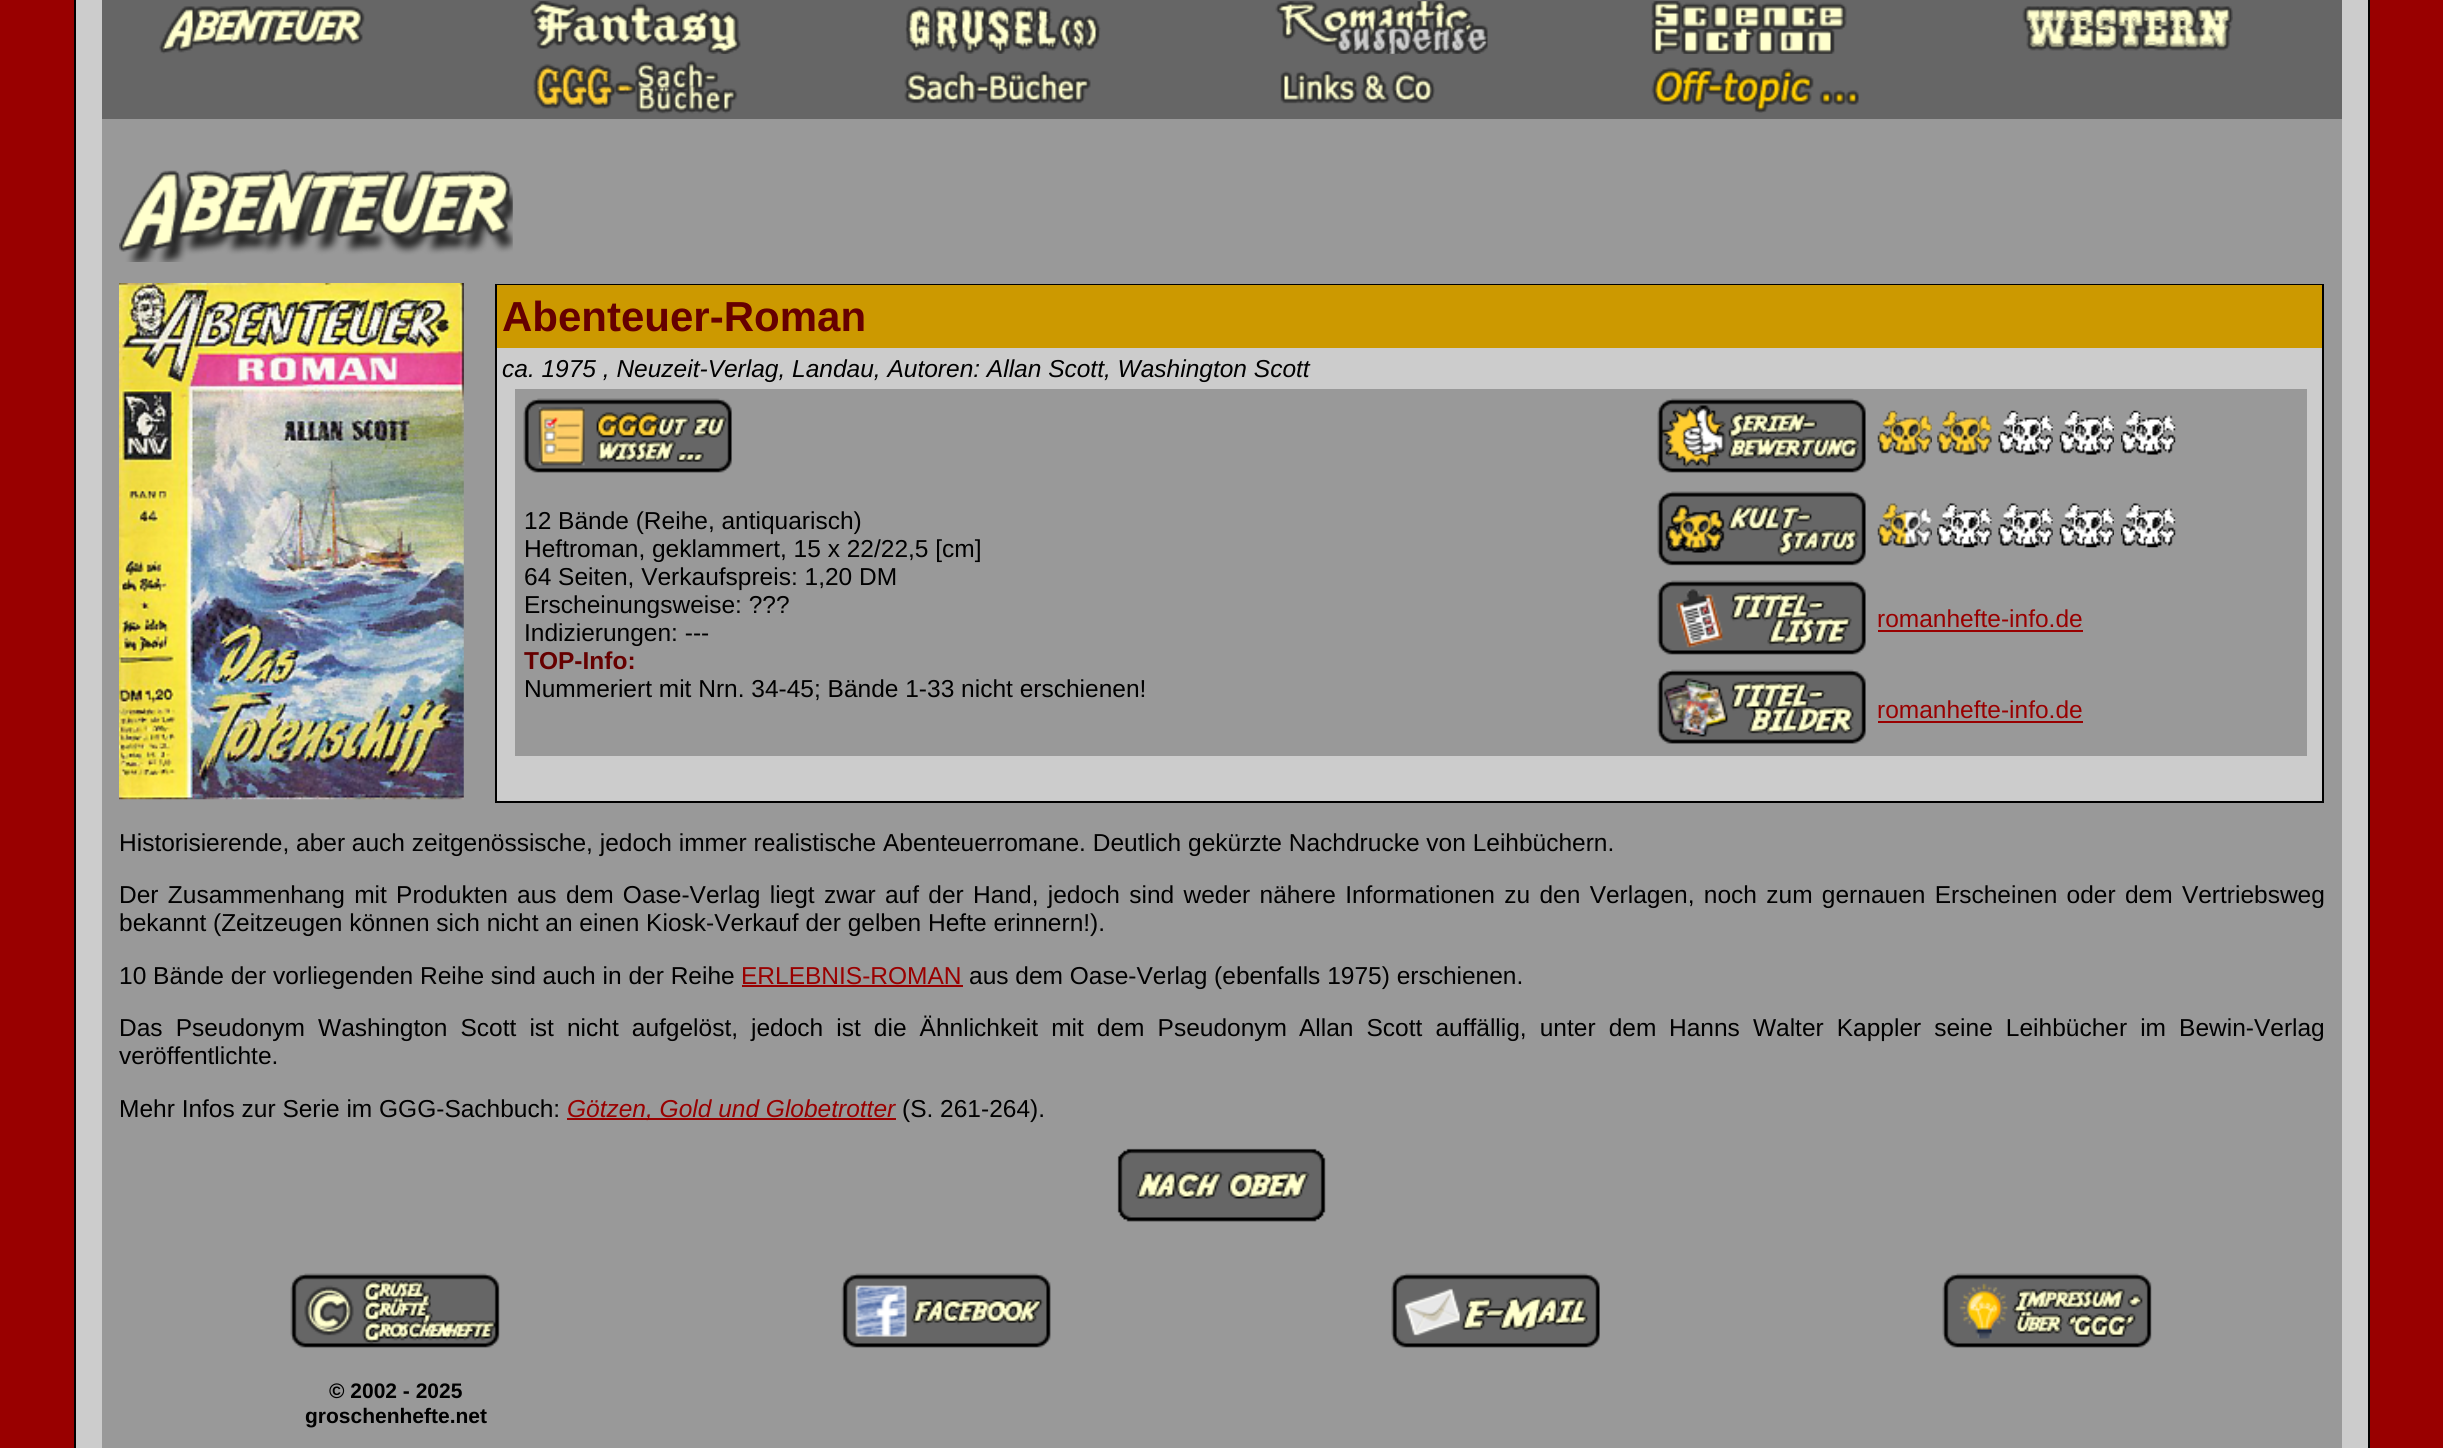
#include <cairo.h>
#include <math.h>
#include <stddef.h>

static cairo_t *c;
static void C(unsigned color){cairo_set_source_rgb(c, (color >> 16) / 255.0, (color >> 8 & 255) / 255.0, (color & 255) / 255.0);}
static void F(const char *family, double size, int italic, int bold){cairo_select_font_face(c, family, italic ? CAIRO_FONT_SLANT_ITALIC : CAIRO_FONT_SLANT_NORMAL,bold ? CAIRO_FONT_WEIGHT_BOLD : CAIRO_FONT_WEIGHT_NORMAL);cairo_set_font_size(c, size);}
static void T(double x, double y, const char *s){cairo_move_to(c, x, y);cairo_show_text(c, s);}
static void L(double x, double y, const char *s, double letter, double word){cairo_move_to(c, x, y);while (*s) {char ch[5] = {0};int n = 0;do ch[n++] = *s++; while ((*s & 0xC0) == 0x80);cairo_show_text(c, ch);cairo_rel_move_to(c, letter + word * (*ch == ' '), 0);}}
static void R(double x, double y, double w, double h){cairo_rectangle(c, x, y, w, h);cairo_fill(c);}
static void I(const char *path, double x, double y, double w, double h){cairo_surface_t *image = cairo_image_surface_create_from_png(path);cairo_save(c);cairo_set_source_surface(c, image, x, y);cairo_rectangle(c, x, y, w, h);cairo_fill(c);cairo_restore(c);cairo_surface_destroy(image);}
int main(void) {
cairo_surface_t *surface = cairo_image_surface_create(CAIRO_FORMAT_RGB24, 2443, 1448);
c = cairo_create(surface);
cairo_font_options_t *options = cairo_font_options_create();
cairo_font_options_set_hint_metrics(options, CAIRO_HINT_METRICS_OFF);
cairo_font_options_set_hint_style(options, CAIRO_HINT_STYLE_NONE);
cairo_set_font_options(c, options);
cairo_set_miter_limit(c, 4);
C(0x990000);
cairo_paint(c);
C(0xcccccc);
cairo_rectangle(c,75,-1,2294,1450);
cairo_fill_preserve(c);
C(0x000000);
cairo_stroke(c);
C(0x666666);
R(102,0,2240,119);
I("1.png",159,5,206,49);
I("2.png",530,1,211,53);
I("3.png",905,6,196,48);
I("4.png",1275,1,213,53);
I("5.png",1651,1,196,53);
I("6.png",2022,4,211,47);
I("7.png",533,60,205,54);
I("8.png",904,71,187,33);
I("9.png",1280,71,155,33);
I("10.png",1651,67,208,46);
C(0x999999);
R(102,119,2240,1329);
I("11.png",119,169,394,93);
I("12.png",119,283,345,517);
C(0xcccccc);
R(497,348,1825,453);
cairo_rectangle(c,496,285,1827,517);
C(0x000000);
cairo_stroke(c);
C(0xcc9900);
R(497,285,1825,63);
F("Liberation Sans",42,0,1);
C(0x660000);
T(502,331,"Abenteuer-Roman");
F("Liberation Sans",24.5,1,0);
C(0x000000);
T(502,377,"ca. 1975 , Neuzeit-Verlag, Landau, Autoren: Allan Scott, Washington Scott");
C(0x999999);
R(515,389,1792,92);
I("13.png",523,398,209,75);
I("14.png",1657,398,209,75);
I("15.png",1877,410,55,45);
I("16.png",1937,410,55,45);
I("17.png",1998,410,55,45);
I("18.png",2059,410,55,45);
I("19.png",2121,410,55,45);
R(1600,481,707,93);
I("20.png",1657,491,209,75);
R(515,481,1085,275);
F("Liberation Sans",24.5,0,0);
C(0x000000);
T(524,529,"12 Bände (Reihe, antiquarisch)");
T(524,557,"Heftroman, geklammert, 15 x 22/22,5 [cm]");
T(524,585,"64 Seiten, Verkaufspreis: 1,20 DM");
T(524,613,"Erscheinungsweise: ?\077?");
T(524,641,"Indizierungen: ---");
F("Liberation Sans",24.5,0,1);
C(0x660000);
T(524,669,"TOP-Info:");
F("Liberation Sans",24.5,0,0);
C(0x000000);
T(524,697,"Nummeriert mit Nrn. 34-45; Bände 1-33 nicht erschienen!");
I("21.png",1877,503,55,45);
I("22.png",1937,503,55,45);
I("23.png",1998,503,55,45);
I("24.png",2059,503,55,45);
I("25.png",2121,503,55,45);
C(0x999999);
R(1600,574,707,89);
I("26.png",1657,580,209,75);
C(0x990000);
T(1877,627,"romanhefte-info.de");
R(1878,630,205,2);
C(0x999999);
R(1600,663,707,93);
I("27.png",1657,669,209,75);
C(0x990000);
T(1877,718,"romanhefte-info.de");
R(1878,721,205,2);
C(0x000000);
T(119,851,"Historisierende, aber auch zeitgenössische, jedoch immer realistische Abenteuerromane. Deutlich gekürzte Nachdrucke von Leihbüchern.");
L(119,903,"Der Zusammenhang mit Produkten aus dem Oase-Verlag liegt zwar auf der Hand, jedoch sind weder nähere Informationen zu den Verlagen, noch zum gernauen Erscheinen oder dem Vertriebsweg",0,2.5);
T(119,931,"bekannt (Zeitzeugen können sich nicht an einen Kiosk-Verkauf der gelben Hefte erinnern!).");
T(119,984,"10 Bände der vorliegenden Reihe sind auch in der Reihe");
C(0x990000);
T(741,984,"ERLEBNIS-ROMAN");
R(742,985,221,2);
C(0x000000);
T(969,984,"aus dem Oase-Verlag (ebenfalls 1975) erschienen.");
L(119,1036,"Das Pseudonym Washington Scott ist nicht aufgelöst, jedoch ist die Ähnlichkeit mit dem Pseudonym",0,6.25);
L(1299,1036,"Allan Scott auffällig, unter dem",0,6.25);
L(1669,1036,"Hanns Walter Kappler seine Leihbücher im Bewin-Verlag",0,6.25);
T(119,1064,"veröffentlichte.");
T(119,1117,"Mehr Infos zur Serie im GGG-Sachbuch:");
C(0x990000);
R(567,1118,329,2);
F("Liberation Sans",24.5,1,0);
T(567,1117,"Götzen, Gold und Globetrotter");
F("Liberation Sans",24.5,0,0);
C(0x000000);
T(902,1117,"(S. 261-264).");
I("28.png",1117,1148,209,74);
I("29.png",290,1273,210,75);
I("30.png",841,1273,210,75);
I("31.png",1391,1273,209,75);
I("32.png",1942,1273,210,75);
F("Liberation Sans",21,0,1);
T(329,1398,"© 2002 - 2025");
T(305,1423,"groschenhefte.net");
cairo_surface_write_to_png(surface, "o.png");
cairo_font_options_destroy(options);
cairo_destroy(c);
cairo_surface_destroy(surface);
return 0;
}
